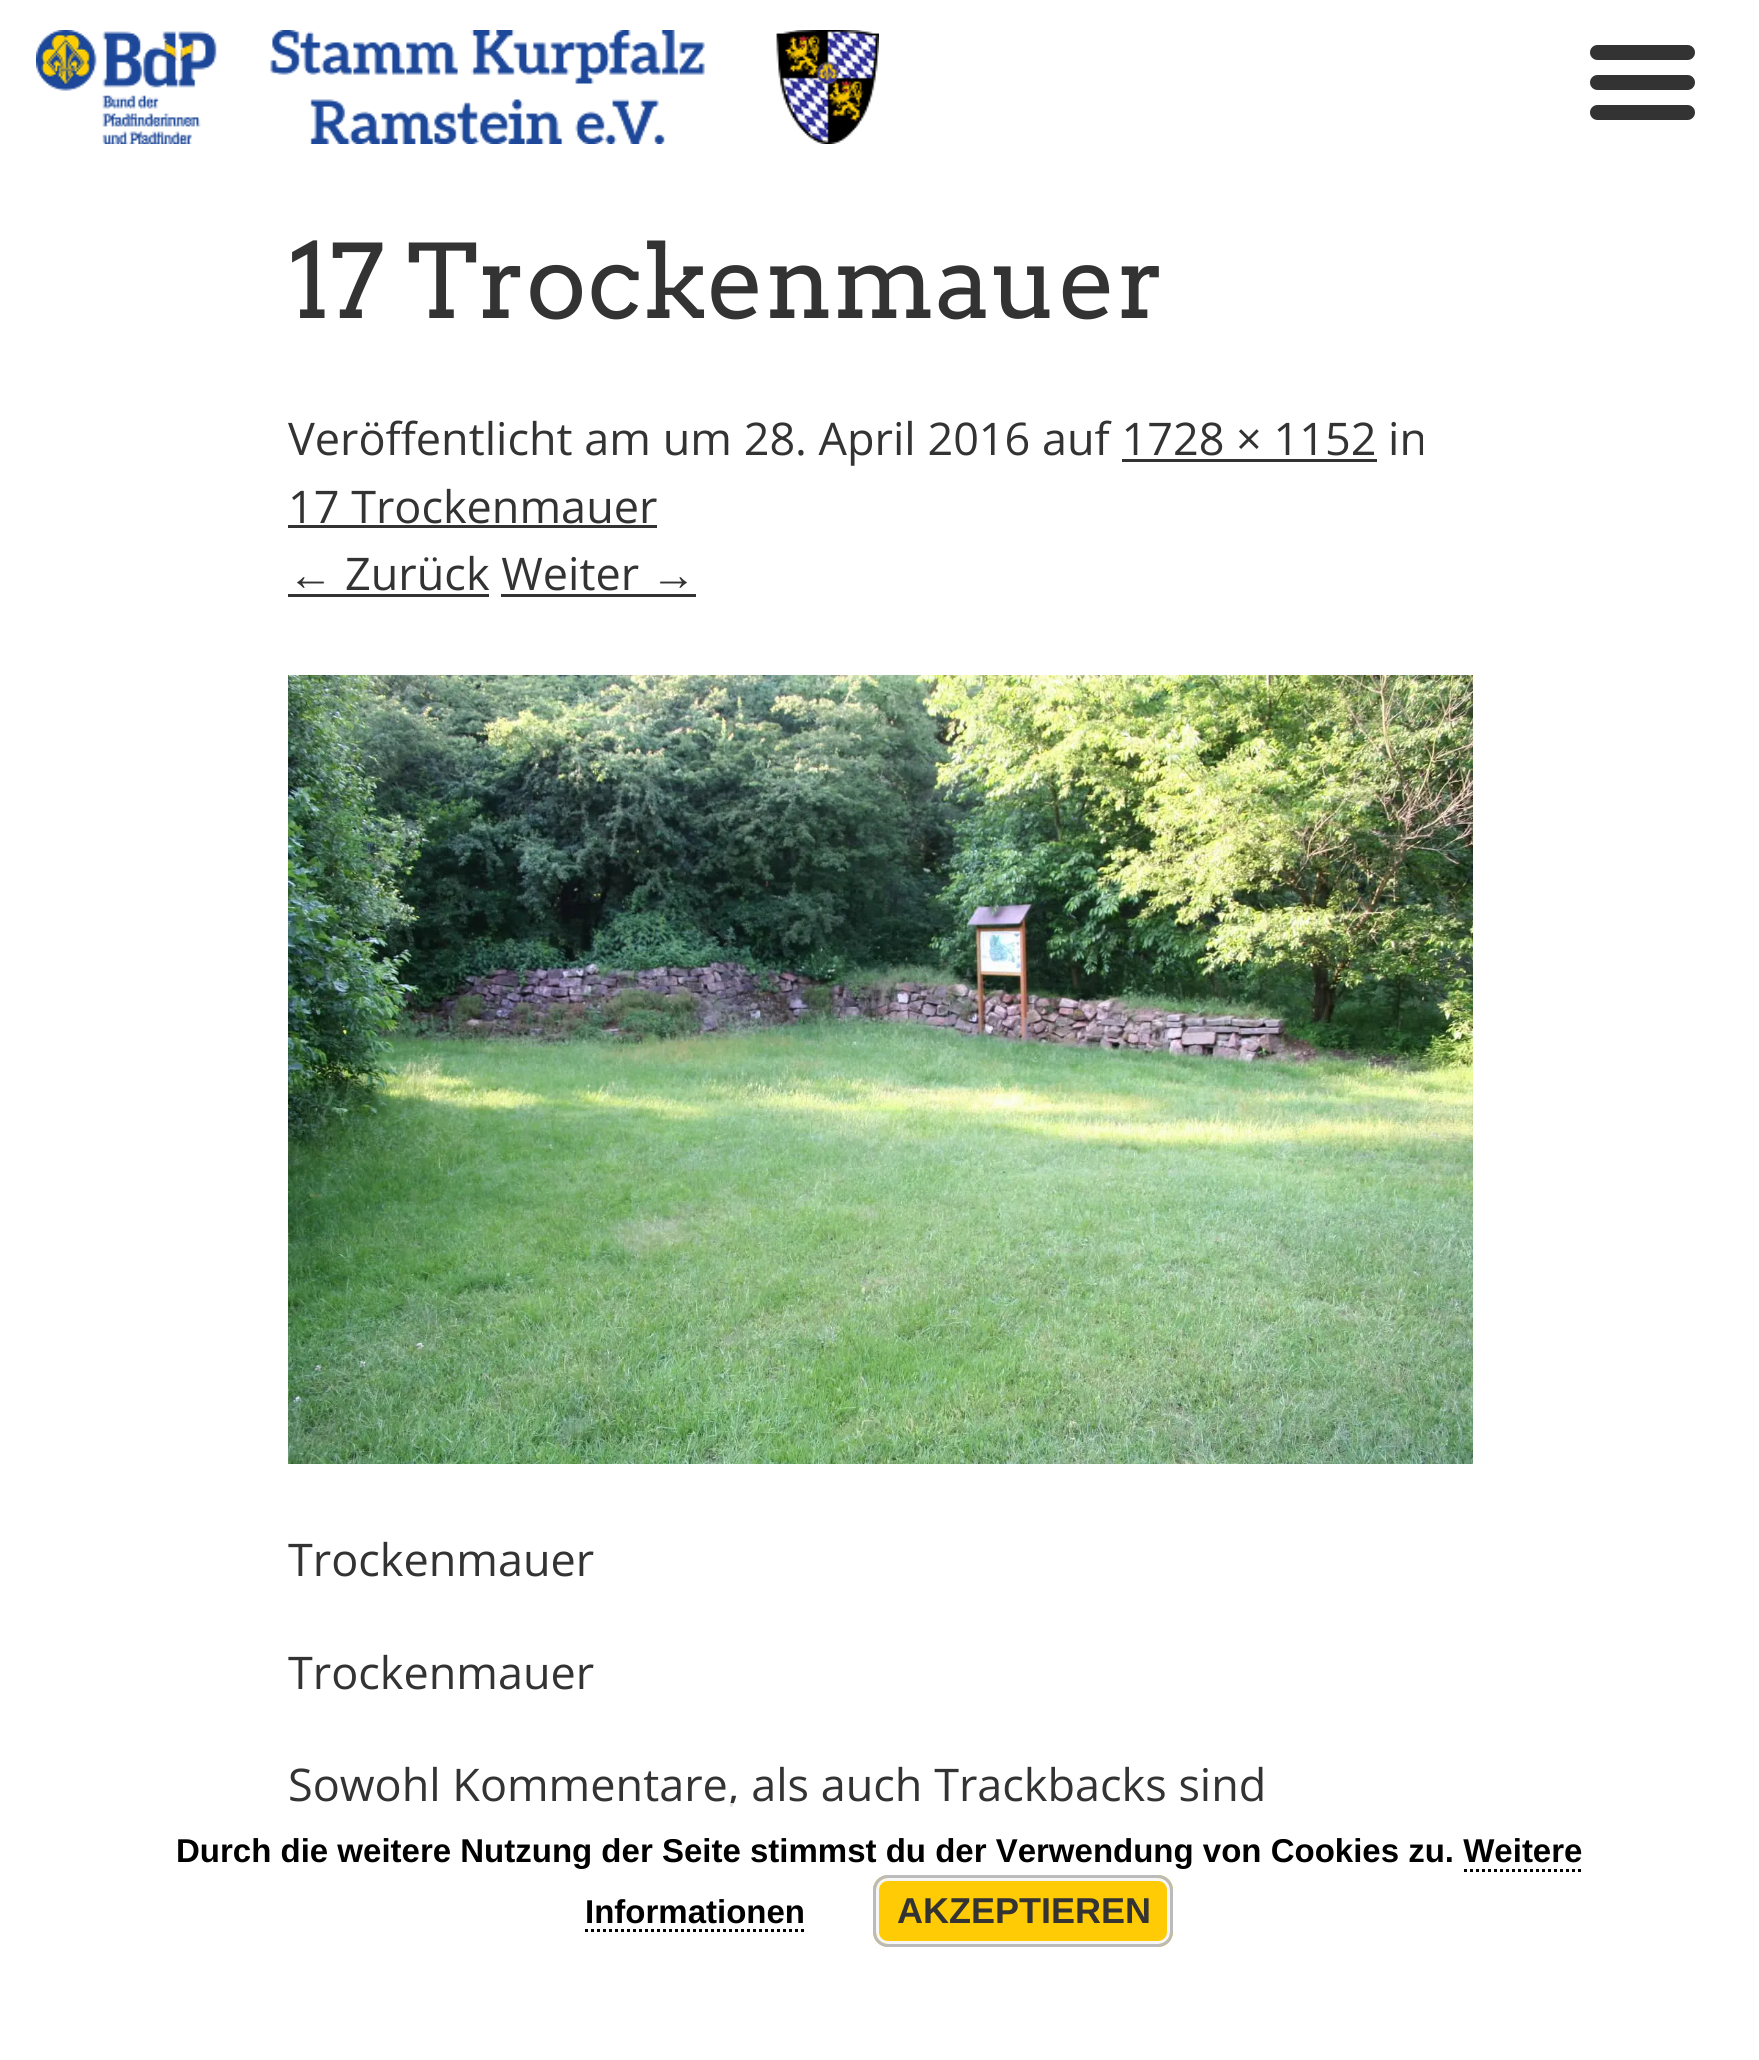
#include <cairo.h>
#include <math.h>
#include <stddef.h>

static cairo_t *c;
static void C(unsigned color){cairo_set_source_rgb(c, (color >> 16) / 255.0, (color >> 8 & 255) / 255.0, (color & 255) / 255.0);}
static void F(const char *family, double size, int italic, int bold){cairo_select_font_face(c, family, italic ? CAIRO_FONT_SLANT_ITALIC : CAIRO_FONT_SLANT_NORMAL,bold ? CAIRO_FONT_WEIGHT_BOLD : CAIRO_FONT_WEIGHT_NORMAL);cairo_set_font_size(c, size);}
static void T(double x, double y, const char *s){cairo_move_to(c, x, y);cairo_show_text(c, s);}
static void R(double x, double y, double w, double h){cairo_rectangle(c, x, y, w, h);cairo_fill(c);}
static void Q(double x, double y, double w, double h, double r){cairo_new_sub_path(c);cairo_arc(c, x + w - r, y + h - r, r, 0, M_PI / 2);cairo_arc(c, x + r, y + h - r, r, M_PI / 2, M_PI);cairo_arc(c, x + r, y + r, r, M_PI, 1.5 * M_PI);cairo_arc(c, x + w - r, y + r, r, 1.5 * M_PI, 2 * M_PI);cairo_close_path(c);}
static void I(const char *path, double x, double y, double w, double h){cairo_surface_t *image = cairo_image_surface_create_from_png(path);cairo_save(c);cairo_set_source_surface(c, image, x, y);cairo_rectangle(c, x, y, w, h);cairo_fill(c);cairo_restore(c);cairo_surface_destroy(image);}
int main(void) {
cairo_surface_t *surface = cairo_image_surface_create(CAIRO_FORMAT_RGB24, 1759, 2060);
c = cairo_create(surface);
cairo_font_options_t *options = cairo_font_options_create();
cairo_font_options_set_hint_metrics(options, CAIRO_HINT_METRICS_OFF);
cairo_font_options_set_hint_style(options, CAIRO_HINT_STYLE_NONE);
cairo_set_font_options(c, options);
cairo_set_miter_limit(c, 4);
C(0xffffff);
cairo_paint(c);
I("1.png",36,30,843,114);
C(0x333333);
Q(1590,45,105,15,7.5);
cairo_fill(c);
Q(1590,75,105,15,7.5);
cairo_fill(c);
Q(1590,105,105,15,7.5);
cairo_fill(c);
F("Arvo",102,0,0);
T(288,318,"17 Trockenmauer");
F("Open Sans",45,0,0);
T(288,455,"Veröffentlicht am um 28. April 2016 auf 1728 × 1152 in");
R(1122,459,255,3);
T(288,523,"17 Trockenmauer");
R(288,525,369,3);
F("Liberation Sans",45,0,0);
T(288,590,"←");
R(288,594,201,3);
F("Open Sans",45,0,0);
T(345,590,"Zurück Weiter");
F("Liberation Sans",45,0,0);
T(651,590,"→");
R(501,594,195,3);
I("2.png",288,675,1185,789);
F("Open Sans",45,0,0);
T(288,1576,"Trockenmauer");
T(288,1689,"Trockenmauer");
T(288,1801,"Sowohl Kommentare, als auch Trackbacks sind");
cairo_set_source_rgba(c,1,1,1,0.85);
Q(87,1803,1584,168,15);
cairo_fill(c);
F("Liberation Sans",33,0,1);
C(0x000000);
T(176,1862,"Durch die weitere Nutzung der Seite stimmst du der Verwendung von Cookies zu. Weitere");
T(585,1923,"Informationen");
cairo_new_path(c);
cairo_move_to(c,1464,1870.5);
cairo_line_to(c,1584,1870.5);
cairo_set_line_width(c,3);
cairo_set_dash(c,(double[]){3,3},2,0);
cairo_stroke(c);
cairo_new_path(c);
cairo_move_to(c,585,1930.5);
cairo_line_to(c,804,1930.5);
cairo_stroke(c);
C(0xffcb04);
Q(873,1875,300,72,15);
cairo_fill(c);
Q(877.5,1879.5,291,63,10.5);
C(0xf6f6f6);
cairo_set_dash(c,NULL,0,0);
cairo_stroke(c);
Q(874.5,1876.5,297,69,13.5);
C(0xbbbbbb);
cairo_stroke(c);
F("Liberation Sans",36,0,1);
C(0x333333);
T(897,1923,"AKZEPTIEREN");
cairo_surface_write_to_png(surface, "o.png");
cairo_font_options_destroy(options);
cairo_destroy(c);
cairo_surface_destroy(surface);
return 0;
}
